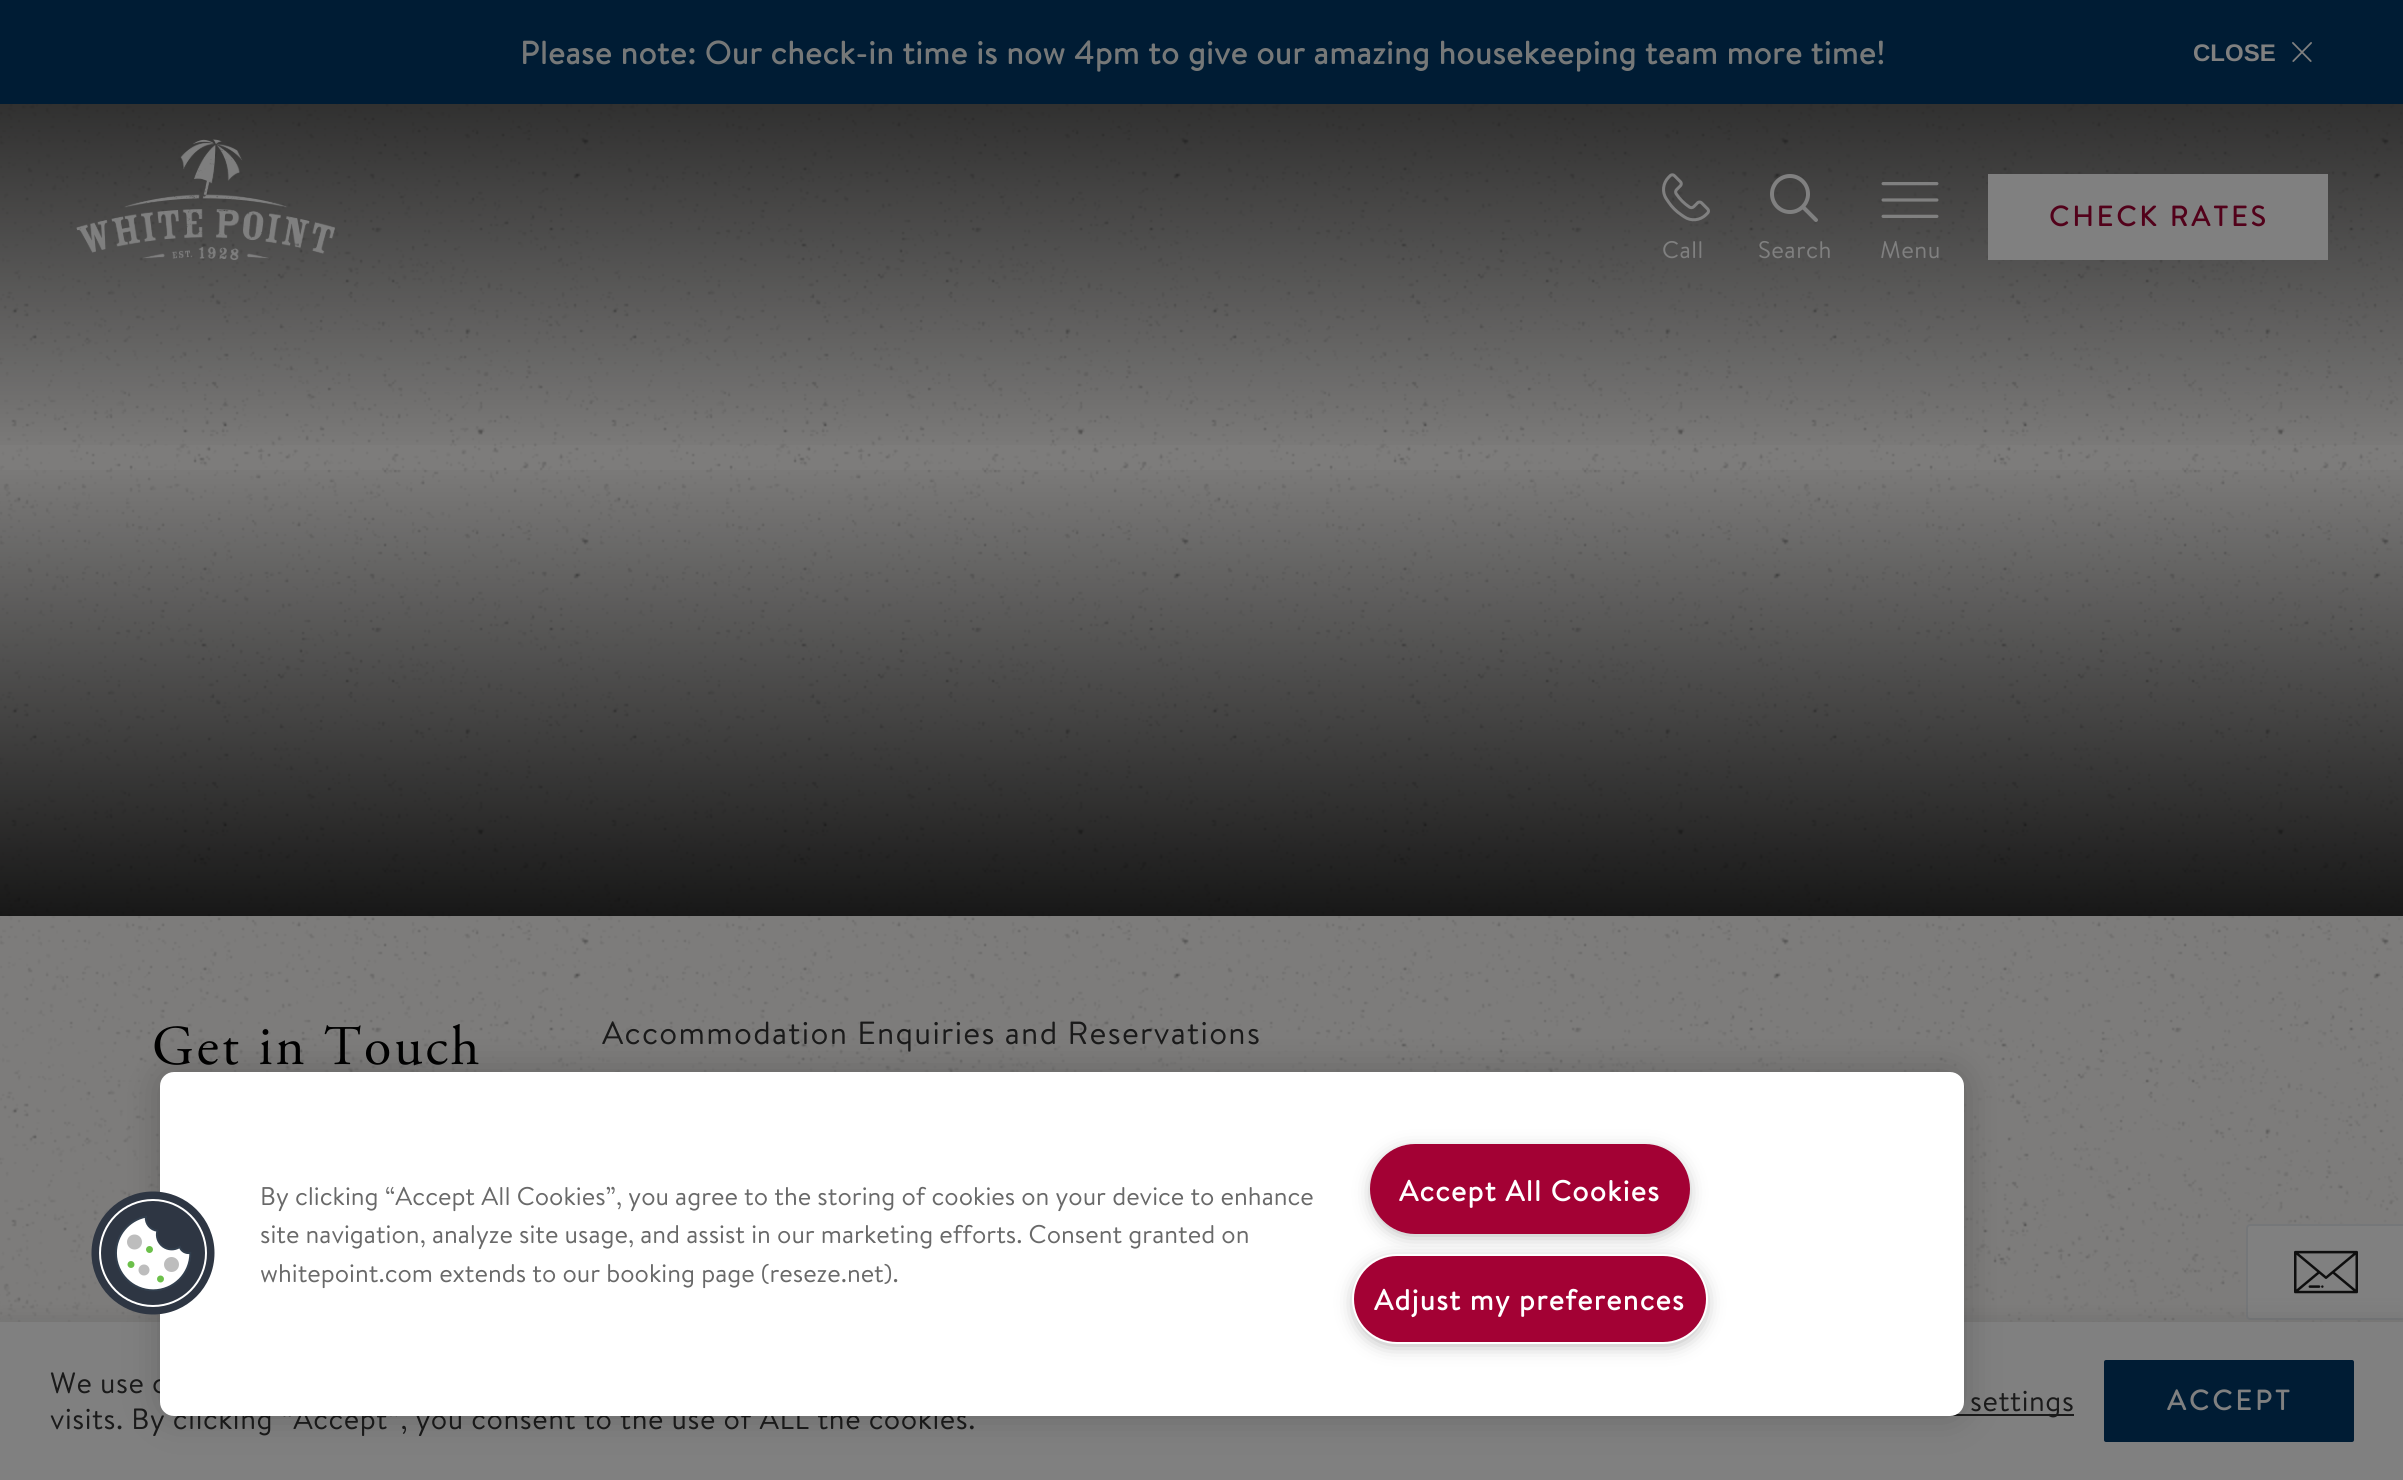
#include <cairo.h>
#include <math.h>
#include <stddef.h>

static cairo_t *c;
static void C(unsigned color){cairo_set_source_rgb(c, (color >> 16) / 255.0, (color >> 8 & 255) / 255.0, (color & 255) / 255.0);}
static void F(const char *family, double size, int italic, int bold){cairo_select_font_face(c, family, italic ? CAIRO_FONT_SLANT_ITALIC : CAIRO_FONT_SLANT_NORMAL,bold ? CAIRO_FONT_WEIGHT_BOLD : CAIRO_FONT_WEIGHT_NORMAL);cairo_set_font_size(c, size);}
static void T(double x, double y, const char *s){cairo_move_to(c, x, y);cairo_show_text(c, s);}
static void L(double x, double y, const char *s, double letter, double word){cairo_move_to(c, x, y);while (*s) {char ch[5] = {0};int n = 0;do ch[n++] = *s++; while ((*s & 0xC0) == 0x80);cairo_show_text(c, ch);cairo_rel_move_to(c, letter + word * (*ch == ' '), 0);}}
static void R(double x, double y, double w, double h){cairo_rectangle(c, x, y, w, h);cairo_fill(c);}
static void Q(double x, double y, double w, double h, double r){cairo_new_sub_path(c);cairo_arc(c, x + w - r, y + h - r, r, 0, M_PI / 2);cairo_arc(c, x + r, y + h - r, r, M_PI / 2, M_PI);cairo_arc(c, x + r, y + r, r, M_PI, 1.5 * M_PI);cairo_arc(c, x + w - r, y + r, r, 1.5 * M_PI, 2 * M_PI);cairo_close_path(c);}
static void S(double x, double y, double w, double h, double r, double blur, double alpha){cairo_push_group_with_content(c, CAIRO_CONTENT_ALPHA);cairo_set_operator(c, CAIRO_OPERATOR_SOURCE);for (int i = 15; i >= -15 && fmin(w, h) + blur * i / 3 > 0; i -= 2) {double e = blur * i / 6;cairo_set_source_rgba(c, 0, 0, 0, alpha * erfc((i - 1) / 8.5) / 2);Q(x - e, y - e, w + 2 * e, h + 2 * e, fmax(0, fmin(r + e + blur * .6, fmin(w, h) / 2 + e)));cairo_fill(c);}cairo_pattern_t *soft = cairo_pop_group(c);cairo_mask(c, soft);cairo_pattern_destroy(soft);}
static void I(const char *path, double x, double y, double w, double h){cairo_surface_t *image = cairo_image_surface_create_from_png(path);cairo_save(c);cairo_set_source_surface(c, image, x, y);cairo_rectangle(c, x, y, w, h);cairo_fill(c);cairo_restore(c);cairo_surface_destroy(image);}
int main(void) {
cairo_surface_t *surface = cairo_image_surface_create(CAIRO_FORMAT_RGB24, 2403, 1480);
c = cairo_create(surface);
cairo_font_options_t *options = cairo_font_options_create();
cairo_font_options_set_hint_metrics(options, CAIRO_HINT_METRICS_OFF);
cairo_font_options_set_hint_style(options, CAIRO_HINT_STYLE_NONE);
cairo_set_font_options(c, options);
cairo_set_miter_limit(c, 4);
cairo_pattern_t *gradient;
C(0x7d7c7b);
cairo_paint(c);
I("1.png",0,104,2403,1218);
C(0x001c34);
R(0,0,2403,104);
F("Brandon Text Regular",32,0,1);
C(0x767878);
L(520,64,"Please note: Our check-in time is now 4pm to give our amazing housekeeping team more time!",.65,0);
F("Liberation Sans",24,0,1);
C(0x808080);
T(2193,61,"CLOSE");
I("2.png",2292,42,20,20);
gradient = cairo_pattern_create_linear(1202,458,1202,0);
cairo_pattern_add_color_stop_rgba(gradient,0,0,0,0,0);
cairo_pattern_add_color_stop_rgba(gradient,1,0,0,0,.79);
cairo_set_source(c,gradient);
cairo_pattern_destroy(gradient);
R(0,104,2403,341);
I("3.png",76,139,259,121);
C(0x808080);
R(1988,174,340,86);
F("Brandon Text Regular",28,0,1);
C(0x52011a);
L(2049,226,"CHECK RATES",3.4,0);
I("4.png",1662,173,48,49);
F("Brandon Text Regular",24,0,0);
C(0x808080);
L(1662,258,"Call",.5,0);
I("5.png",1770,174,48,48);
L(1758,258,"Search",.5,0);
I("6.png",1881,182,58,36);
L(1880,258,"Menu",.5,0);
gradient = cairo_pattern_create_linear(1202,458,1202,916);
cairo_pattern_add_color_stop_rgba(gradient,0,0,0,0,0);
cairo_pattern_add_color_stop_rgba(gradient,1,0,0,0,.81);
cairo_set_source(c,gradient);
cairo_pattern_destroy(gradient);
R(0,470,2403,446);
F("Adobe Garamond",56,0,0);
C(0x000000);
L(152,1064,"Get in Touch",2.75,0);
F("Brandon Text Regular",32,0,0);
C(0x1a1a1a);
L(602,1044,"Accommodation Enquiries and Reservations",1.3,0);
C(0x808080);
cairo_new_path(c);
cairo_move_to(c,2250,1225);
cairo_line_to(c,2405,1225);
cairo_line_to(c,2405,1319);
cairo_line_to(c,2250,1319);
cairo_curve_to(c,2248.5,1319,2247,1317.5,2247,1316);
cairo_line_to(c,2247,1228);
cairo_curve_to(c,2247,1226.5,2248.5,1225,2250,1225);
cairo_close_path(c);
cairo_fill_preserve(c);
C(0x757779);
cairo_stroke(c);
I("7.png",2294,1250,64,44);
C(0x565656);
S(0,1320,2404,158,0,10,.3);
C(0x808080);
R(0,1322,2403,158);
F("Brandon Text Regular",29.3,0,0);
C(0x1a1a1a);
L(50,1393,"We use c",.55,0);
L(50,1429,"visits. By clicking “Accept”, you consent to the use of ALL the cookies.",.55,0);
R(1950,1414,124,2);
L(1970,1411,"settings",.55,0);
C(0x001c34);
Q(2104,1360,250,82,2);
cairo_fill(c);
F("Brandon Text Regular",28,0,1);
C(0x808080);
L(2167,1410,"ACCEPT",3.4,0);
C(0x000000);
S(160,1072,1804,344,14,18,.2);
C(0xffffff);
Q(160,1072,1804,344,14);
cairo_fill(c);
I("8.png",91,1191,124,124);
F("Brandon Text Regular",25.6,0,0);
C(0x696969);
T(260,1205,"By clicking “Accept All Cookies”, you agree to the storing of cookies on your device to enhance");
T(260,1243,"site navigation, analyze site usage, and assist in our marketing efforts. Consent granted on");
T(260,1282,"whitepoint.com extends to our booking page (reseze.net).");
C(0x999999);
S(1376,1154,308,78,39,10,1);
C(0xa30134);
Q(1371,1145,318,88,44);
cairo_fill_preserve(c);
cairo_stroke(c);
F("Brandon Text Regular",28.75,0,1);
C(0xffffff);
L(1399,1201,"Accept All Cookies",1.4,0);
C(0x999999);
S(1358,1264,344,78,39,10,1);
C(0xa30134);
Q(1353,1255,354,88,44);
cairo_fill_preserve(c);
C(0xffffff);
cairo_stroke(c);
L(1374,1310,"Adjust my preferences",1.4,0);
cairo_surface_write_to_png(surface, "o.png");
cairo_font_options_destroy(options);
cairo_destroy(c);
cairo_surface_destroy(surface);
return 0;
}
